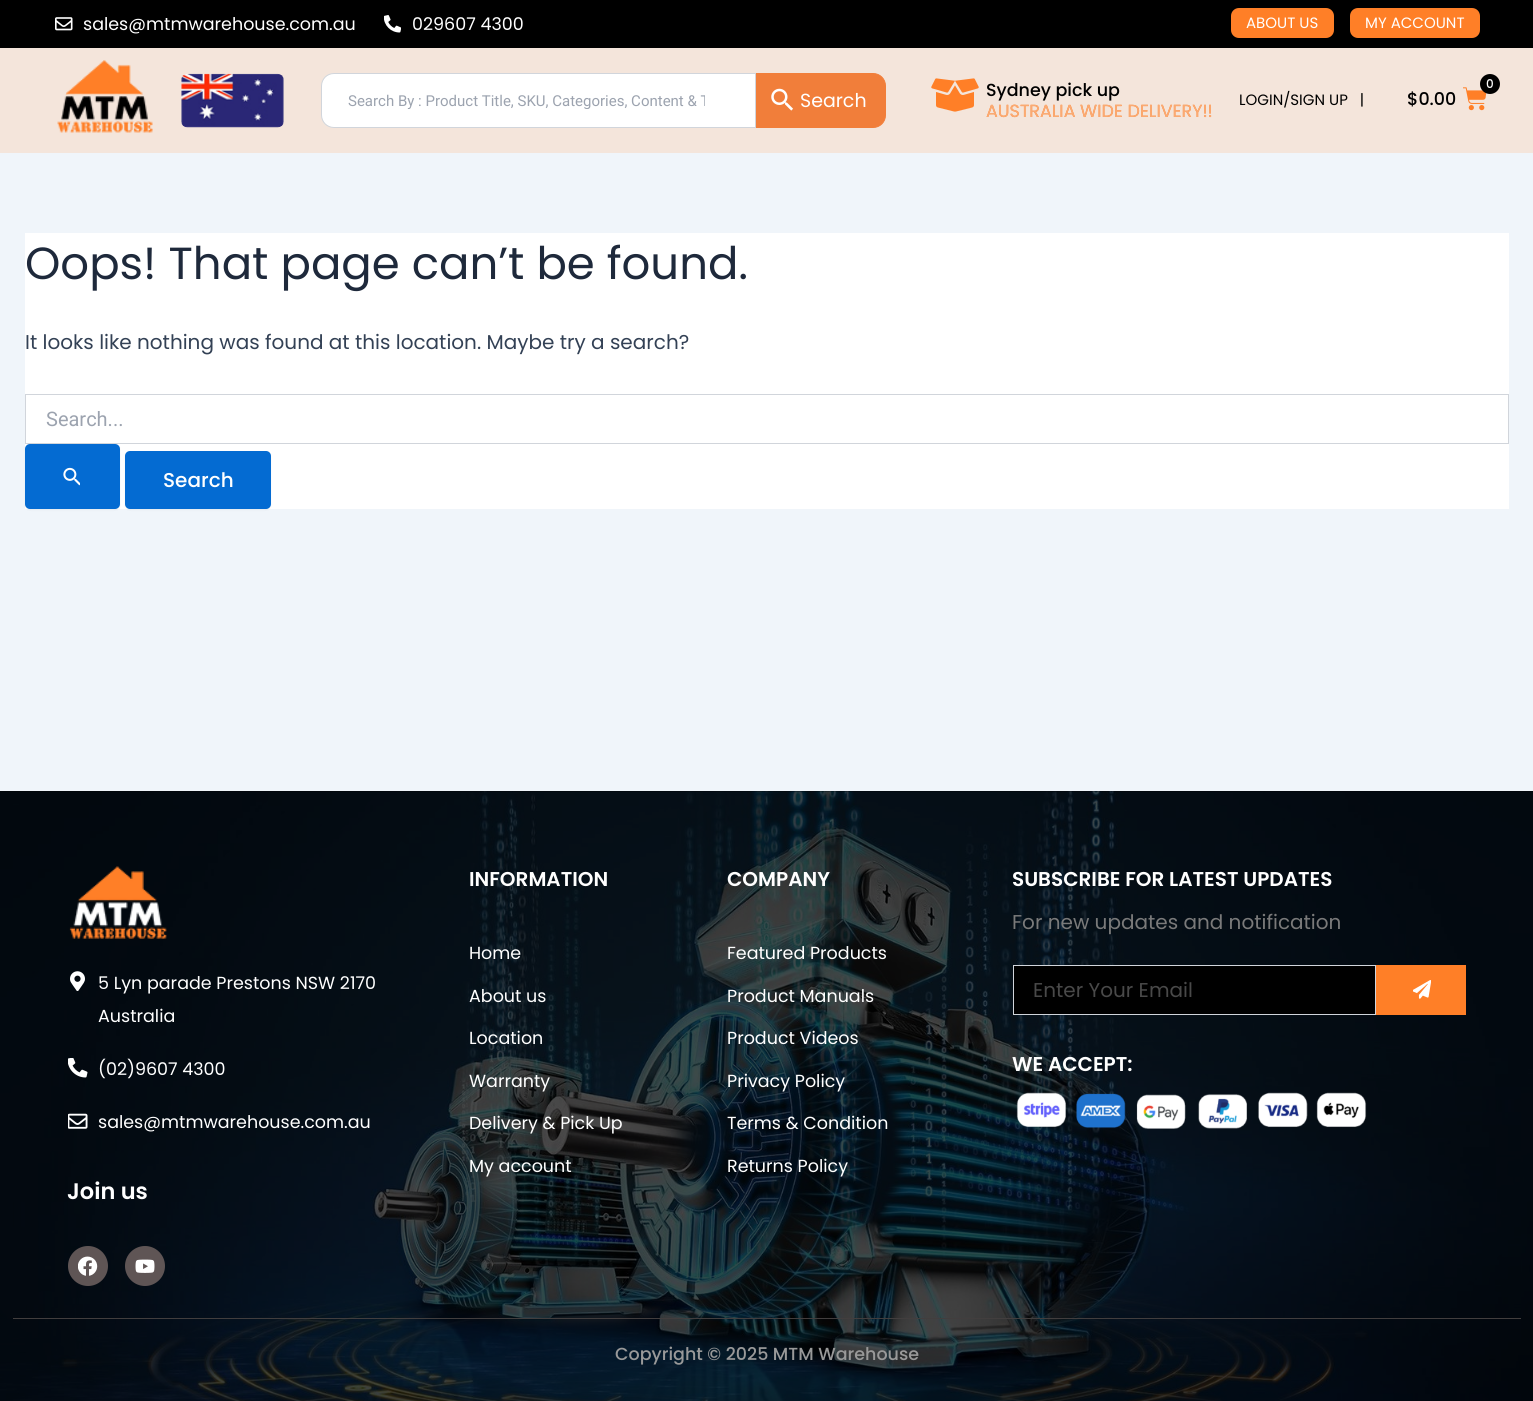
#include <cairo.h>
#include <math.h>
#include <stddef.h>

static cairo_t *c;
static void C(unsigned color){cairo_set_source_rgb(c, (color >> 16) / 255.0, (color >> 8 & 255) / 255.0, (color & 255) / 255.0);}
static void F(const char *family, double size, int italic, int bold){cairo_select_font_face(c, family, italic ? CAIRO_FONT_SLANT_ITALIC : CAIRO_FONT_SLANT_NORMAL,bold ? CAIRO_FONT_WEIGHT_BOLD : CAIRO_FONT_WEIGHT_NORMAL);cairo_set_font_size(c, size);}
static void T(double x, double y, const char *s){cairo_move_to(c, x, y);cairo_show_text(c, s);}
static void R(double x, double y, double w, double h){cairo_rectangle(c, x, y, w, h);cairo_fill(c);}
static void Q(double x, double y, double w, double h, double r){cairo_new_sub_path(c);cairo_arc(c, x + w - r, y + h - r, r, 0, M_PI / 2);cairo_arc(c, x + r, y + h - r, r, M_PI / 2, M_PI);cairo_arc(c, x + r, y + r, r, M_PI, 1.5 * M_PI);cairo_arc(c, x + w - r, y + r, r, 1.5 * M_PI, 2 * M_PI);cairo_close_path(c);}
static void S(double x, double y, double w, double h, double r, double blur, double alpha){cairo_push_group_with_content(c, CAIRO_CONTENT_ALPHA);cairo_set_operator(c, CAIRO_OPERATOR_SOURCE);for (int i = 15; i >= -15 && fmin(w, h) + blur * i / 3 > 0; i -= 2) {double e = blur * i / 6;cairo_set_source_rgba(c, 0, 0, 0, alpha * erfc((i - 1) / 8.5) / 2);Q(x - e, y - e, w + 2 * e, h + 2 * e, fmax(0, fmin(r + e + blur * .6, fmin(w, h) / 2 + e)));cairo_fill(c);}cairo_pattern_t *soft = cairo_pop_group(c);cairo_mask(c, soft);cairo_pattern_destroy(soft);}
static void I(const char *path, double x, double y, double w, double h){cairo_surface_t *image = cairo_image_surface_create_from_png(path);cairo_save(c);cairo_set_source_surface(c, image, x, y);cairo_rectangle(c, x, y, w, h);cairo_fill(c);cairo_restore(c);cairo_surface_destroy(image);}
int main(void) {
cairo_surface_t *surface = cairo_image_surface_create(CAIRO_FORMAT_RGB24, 1533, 1401);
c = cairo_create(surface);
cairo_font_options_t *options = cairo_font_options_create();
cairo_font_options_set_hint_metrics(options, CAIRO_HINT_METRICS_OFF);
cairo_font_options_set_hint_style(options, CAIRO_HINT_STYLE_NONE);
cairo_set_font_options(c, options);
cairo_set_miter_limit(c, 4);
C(0xf0f5fa);
cairo_paint(c);
C(0x000000);
R(0,0,1533,48);
I("1.png",55,17,18,14);
F("Poppins",17.5,0,0);
C(0xffffff);
T(83,30,"sales@mtmwarehouse.com.au");
I("2.png",384,15,17,18);
T(412,30,"029607 4300");
C(0xff7f27);
Q(1231,8,103,30,8);
cairo_fill(c);
F("Poppins",15,0,0);
C(0xffffff);
T(1246,28,"ABOUT US");
C(0xff7f27);
Q(1350,8,130,30,8);
cairo_fill(c);
C(0xffffff);
T(1365,28,"MY ACCOUNT");
C(0xf4e5db);
R(0,48,1533,105);
I("3.png",57,60,96,73);
I("4.png",181,73,103,55);
C(0xf17e3a);
cairo_new_path(c);
cairo_move_to(c,755.5,73.5);
cairo_line_to(c,873,73.5);
cairo_curve_to(c,880,73.5,885.5,79,885.5,86);
cairo_line_to(c,885.5,115);
cairo_curve_to(c,885.5,122,880,127.5,873,127.5);
cairo_line_to(c,755.5,127.5);
cairo_close_path(c);
cairo_fill_preserve(c);
cairo_set_line_width(c,1);
cairo_stroke(c);
C(0xffffff);
cairo_new_path(c);
cairo_move_to(c,334,73.5);
cairo_line_to(c,755.5,73.5);
cairo_line_to(c,755.5,127.5);
cairo_line_to(c,334,127.5);
cairo_curve_to(c,327,127.5,321.5,122,321.5,115);
cairo_line_to(c,321.5,86);
cairo_curve_to(c,321.5,79,327,73.5,334,73.5);
cairo_close_path(c);
cairo_fill_preserve(c);
C(0xd1d5db);
cairo_stroke(c);
cairo_save(c);
cairo_rectangle(c,348,91,357,18);
cairo_clip(c);
F("Roboto",15,0,0);
C(0x9ca3af);
T(348,106,"Search By : Product Title, SKU, Categories, Content & T");
cairo_restore(c);
I("5.png",771,88,22,23);
F("Poppins",19,0,0);
C(0xffffff);
T(800,107,"Search");
I("6.png",931,78,48,34);
F("Poppins Medium",17.5,0,0);
C(0x000000);
T(986,96,"Sydney pick up");
F("Poppins",17.5,0,0);
C(0xff7f27);
T(986,117,"AUSTRALIA WIDE DELIVERY!!");
C(0xfaaa73);
T(986,117,"AUSTRALIA WIDE DELIVERY!!");
F("Poppins",15,0,0);
C(0x000000);
T(1239,105,"LOGIN/SIGN UP   |");
I("7.png",1463,87,24,24);
cairo_arc(c,1490,84,10,0,2 * M_PI);
cairo_fill(c);
F("Poppins Medium",12,0,0);
C(0xffffff);
T(1486,88,"0");
F("Poppins Medium",17.5,0,0);
C(0x000000);
T(1407,105,"$0.00");
C(0xffffff);
R(25,233,1484,276);
F("Poppins",45,0,0);
C(0x1e293b);
T(25,279,"Oops! That page can’t be found.");
F("Poppins",20,0,0);
C(0x334155);
T(25,349,"It looks like nothing was found at this location. Maybe try a search?");
cairo_rectangle(c,25.5,394.5,1483,49);
C(0xd1d5db);
cairo_stroke(c);
F("Roboto",20,0,0);
C(0x9ca3af);
T(46,426,"Search...");
C(0x000000);
S(25,445,95,65,5,1,.05);
C(0x046bd2);
Q(25,444,95,65,5);
cairo_fill(c);
I("8.png",63,467,17,19);
C(0x000000);
S(125,453,146,57,5,1,.05);
C(0x046bd2);
Q(125,451,146,58,5);
cairo_fill(c);
F("Poppins Medium",20,0,0);
C(0xffffff);
T(163,487,"Search");
C(0x000000);
R(0,791,1533,610);
I("9.png",0,791,1533,610);
I("10.png",69,866,98,73);
I("11.png",70,971,15,20);
F("Poppins",17.5,0,0);
C(0xffffff);
T(98,989,"5 Lyn parade Prestons NSW 2170");
T(98,1022,"Australia");
I("12.png",68,1058,20,20);
T(98,1075,"(02)9607 4300");
I("13.png",68,1113,20,16);
T(98,1128,"sales@mtmwarehouse.com.au");
F("Poppins SemiBold",22.5,0,0);
T(67,1199,"Join us");
C(0x5f5555);
cairo_new_path(c);
cairo_arc(c,88,1266,20,0,2 * M_PI);
cairo_fill(c);
I("14.png",78,1256,20,20);
cairo_arc(c,145,1266,20,0,2 * M_PI);
cairo_fill(c);
I("15.png",135,1259,20,14);
F("Poppins SemiBold",20,0,0);
C(0xffffff);
T(469,886,"INFORMATION");
F("Poppins",17.5,0,0);
T(469,959,"Home");
T(469,1002,"About us");
T(469,1044,"Location");
T(469,1087,"Warranty");
T(469,1129,"Delivery & Pick Up");
T(469,1172,"My account");
F("Poppins SemiBold",20,0,0);
T(727,886,"COMPANY");
F("Poppins",17.5,0,0);
T(727,959,"Featured Products");
T(727,1002,"Product Manuals");
T(727,1044,"Product Videos");
T(727,1087,"Privacy Policy");
T(727,1129,"Terms & Condition");
T(727,1172,"Returns Policy");
F("Poppins SemiBold",20,0,0);
T(1012,886,"SUBSCRIBE FOR LATEST UPDATES");
F("Poppins",20,0,0);
C(0x7a7a7a);
T(1012,929,"For new updates and notification");
C(0x000000);
cairo_rectangle(c,1013.5,965.5,362,49);
cairo_fill_preserve(c);
C(0xd1d5db);
cairo_stroke(c);
C(0x494949);
T(1033,997,"Enter Your Email");
C(0xff7f27);
R(1376,965,90,50);
I("16.png",1413,980,18,19);
F("Poppins SemiBold",20,0,0);
C(0xffffff);
T(1012,1071,"WE ACCEPT:");
I("17.png",1016,1092,351,37);
C(0x423e3e);
R(13,1318,1508,1);
F("Poppins Medium",17.5,0,0);
C(0x999999);
T(615,1360,"Copyright © 2025 MTM Warehouse");
cairo_surface_write_to_png(surface, "o.png");
cairo_font_options_destroy(options);
cairo_destroy(c);
cairo_surface_destroy(surface);
return 0;
}
